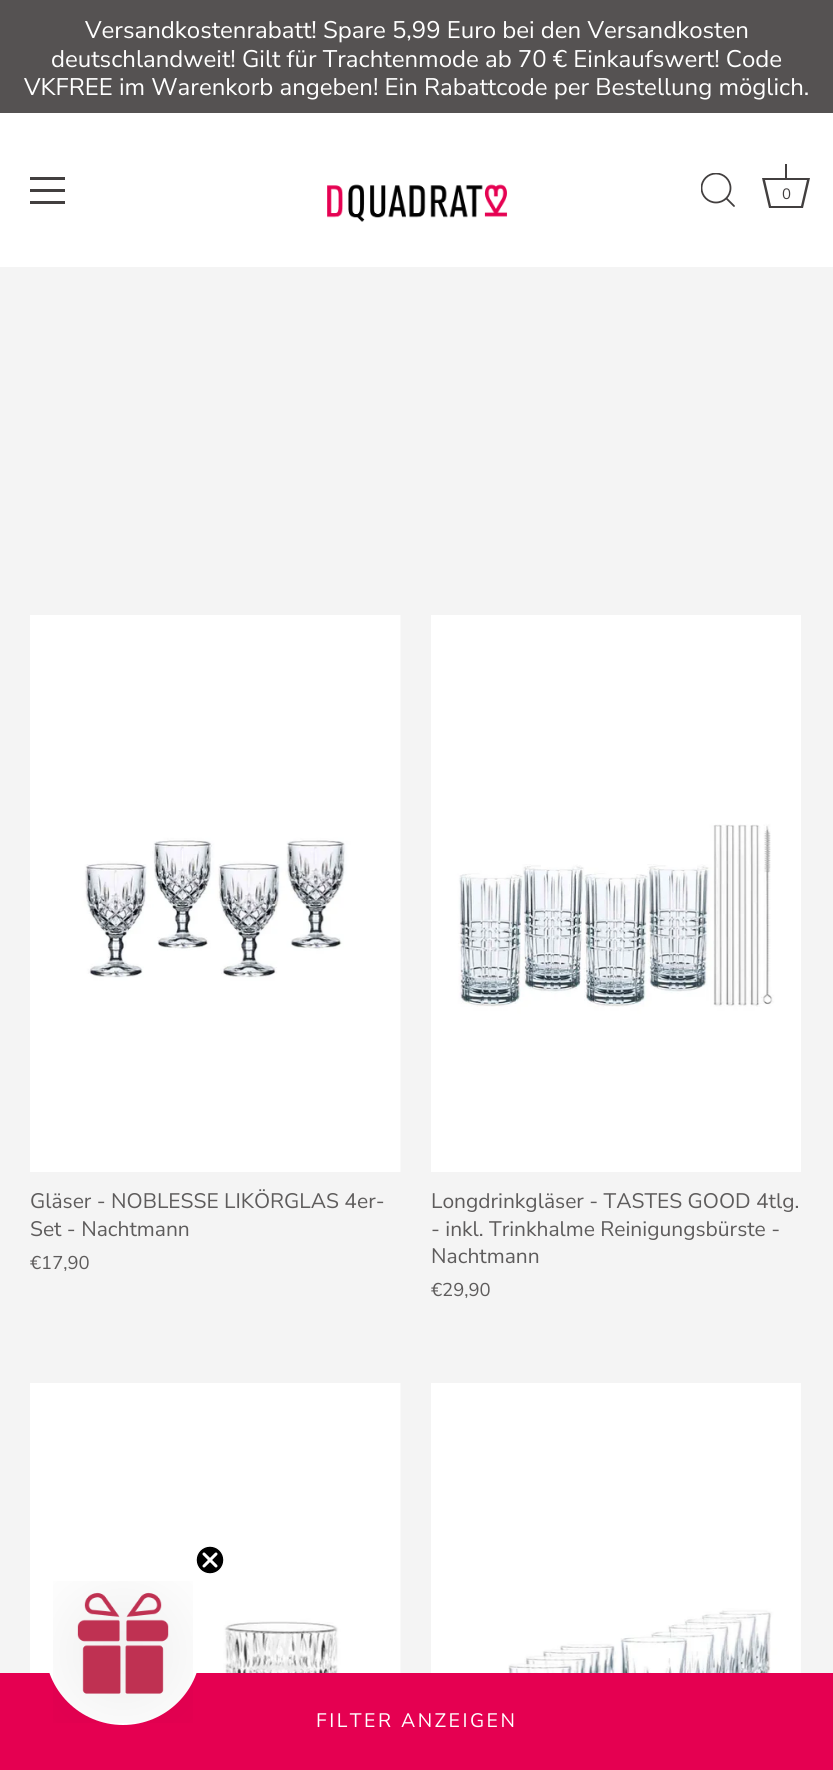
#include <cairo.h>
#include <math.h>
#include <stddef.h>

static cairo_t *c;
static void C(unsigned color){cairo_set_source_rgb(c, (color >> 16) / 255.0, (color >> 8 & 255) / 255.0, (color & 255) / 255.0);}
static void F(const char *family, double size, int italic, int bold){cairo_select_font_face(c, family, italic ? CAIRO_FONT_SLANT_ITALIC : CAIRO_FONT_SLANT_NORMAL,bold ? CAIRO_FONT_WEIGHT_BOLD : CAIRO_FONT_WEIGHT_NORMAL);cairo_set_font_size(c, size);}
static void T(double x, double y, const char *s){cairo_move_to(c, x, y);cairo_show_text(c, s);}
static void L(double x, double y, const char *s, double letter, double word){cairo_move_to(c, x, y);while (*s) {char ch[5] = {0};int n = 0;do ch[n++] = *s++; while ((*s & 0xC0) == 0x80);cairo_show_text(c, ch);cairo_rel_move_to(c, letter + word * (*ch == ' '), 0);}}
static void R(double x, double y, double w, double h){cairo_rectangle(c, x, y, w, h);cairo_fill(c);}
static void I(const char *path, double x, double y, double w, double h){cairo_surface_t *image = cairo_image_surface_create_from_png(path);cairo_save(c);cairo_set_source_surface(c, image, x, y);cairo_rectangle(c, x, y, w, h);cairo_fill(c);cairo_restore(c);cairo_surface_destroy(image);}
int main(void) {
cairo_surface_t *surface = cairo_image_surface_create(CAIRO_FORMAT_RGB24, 833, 1770);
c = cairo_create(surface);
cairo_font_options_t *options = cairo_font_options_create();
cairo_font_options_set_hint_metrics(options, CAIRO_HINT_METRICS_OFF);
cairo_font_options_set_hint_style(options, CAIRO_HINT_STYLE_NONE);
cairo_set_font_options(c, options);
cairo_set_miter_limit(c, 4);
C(0xf4f4f4);
cairo_paint(c);
C(0xffffff);
R(0,113,833,154);
C(0x555252);
R(0,0,833,113);
F("Nunito Sans",24,0,0);
C(0xffffff);
T(85,38,"Versandkostenrabatt! Spare 5,99 Euro bei den Versandkosten");
T(51,67,"deutschlandweit! Gilt für Trachtenmode ab 70 € Einkaufswert! Code");
T(24,95,"VKFREE im Warenkorb angeben! Ein Rabattcode per Bestellung möglich.");
C(0x423f3f);
R(30,177,35,3);
R(30,189,35,3);
R(30,201,35,3);
I("1.png",327,184,181,38);
cairo_save(c);
cairo_rectangle(c,701,173,36,36);
cairo_clip(c);
cairo_arc(c,716,188,14.5,0,2 * M_PI);
cairo_set_line_width(c,1.8);
cairo_stroke(c);
cairo_restore(c);
cairo_new_path(c);
cairo_move_to(c,734,206);
cairo_line_to(c,726.5,198.5);
cairo_set_line_width(c,1.8);
cairo_set_line_cap(c,CAIRO_LINE_CAP_ROUND);
cairo_set_line_join(c,CAIRO_LINE_JOIN_ROUND);
cairo_stroke(c);
R(785,164,2,14);
cairo_new_path(c);
cairo_move_to(c,807,180);
cairo_line_to(c,801,206);
cairo_line_to(c,771,206);
cairo_line_to(c,765,180);
cairo_line_to(c,807,180);
cairo_move_to(c,810,178);
cairo_line_to(c,762,178);
cairo_line_to(c,769,208);
cairo_line_to(c,803,208);
cairo_close_path(c);
cairo_fill(c);
F("Nunito Sans",15,0,0);
T(782,199,"0");
I("2.png",30,615,371,557);
F("Nunito Sans",21,0,0);
C(0x5e5c5c);
T(30,1208,"Gläser - NOBLESSE LIKÖRGLAS 4er-");
T(30,1236,"Set - Nachtmann");
F("Nunito Sans",18.5,0,0);
T(30,1269,"€17,90");
I("3.png",431,615,370,557);
F("Nunito Sans",21,0,0);
T(431,1208,"Longdrinkgläser - TASTES GOOD 4tlg.");
T(431,1236,"- inkl. Trinkhalme Reinigungsbürste -");
T(431,1263,"Nachtmann");
F("Nunito Sans",18.5,0,0);
T(431,1296,"€29,90");
I("4.png",30,1383,371,290);
I("5.png",431,1383,370,290);
C(0xe50051);
R(0,1673,833,97);
F("Nunito Sans",19.5,0,0);
C(0xffffff);
L(316,1727,"FILTER ANZEIGEN",2.5,0);
cairo_new_path(c);
cairo_arc(c,123,1647,78,0,2 * M_PI);
cairo_fill(c);
I("6.png",196,1546,28,28);
I("7.png",53,1581,140,142);
cairo_surface_write_to_png(surface, "o.png");
cairo_font_options_destroy(options);
cairo_destroy(c);
cairo_surface_destroy(surface);
return 0;
}
